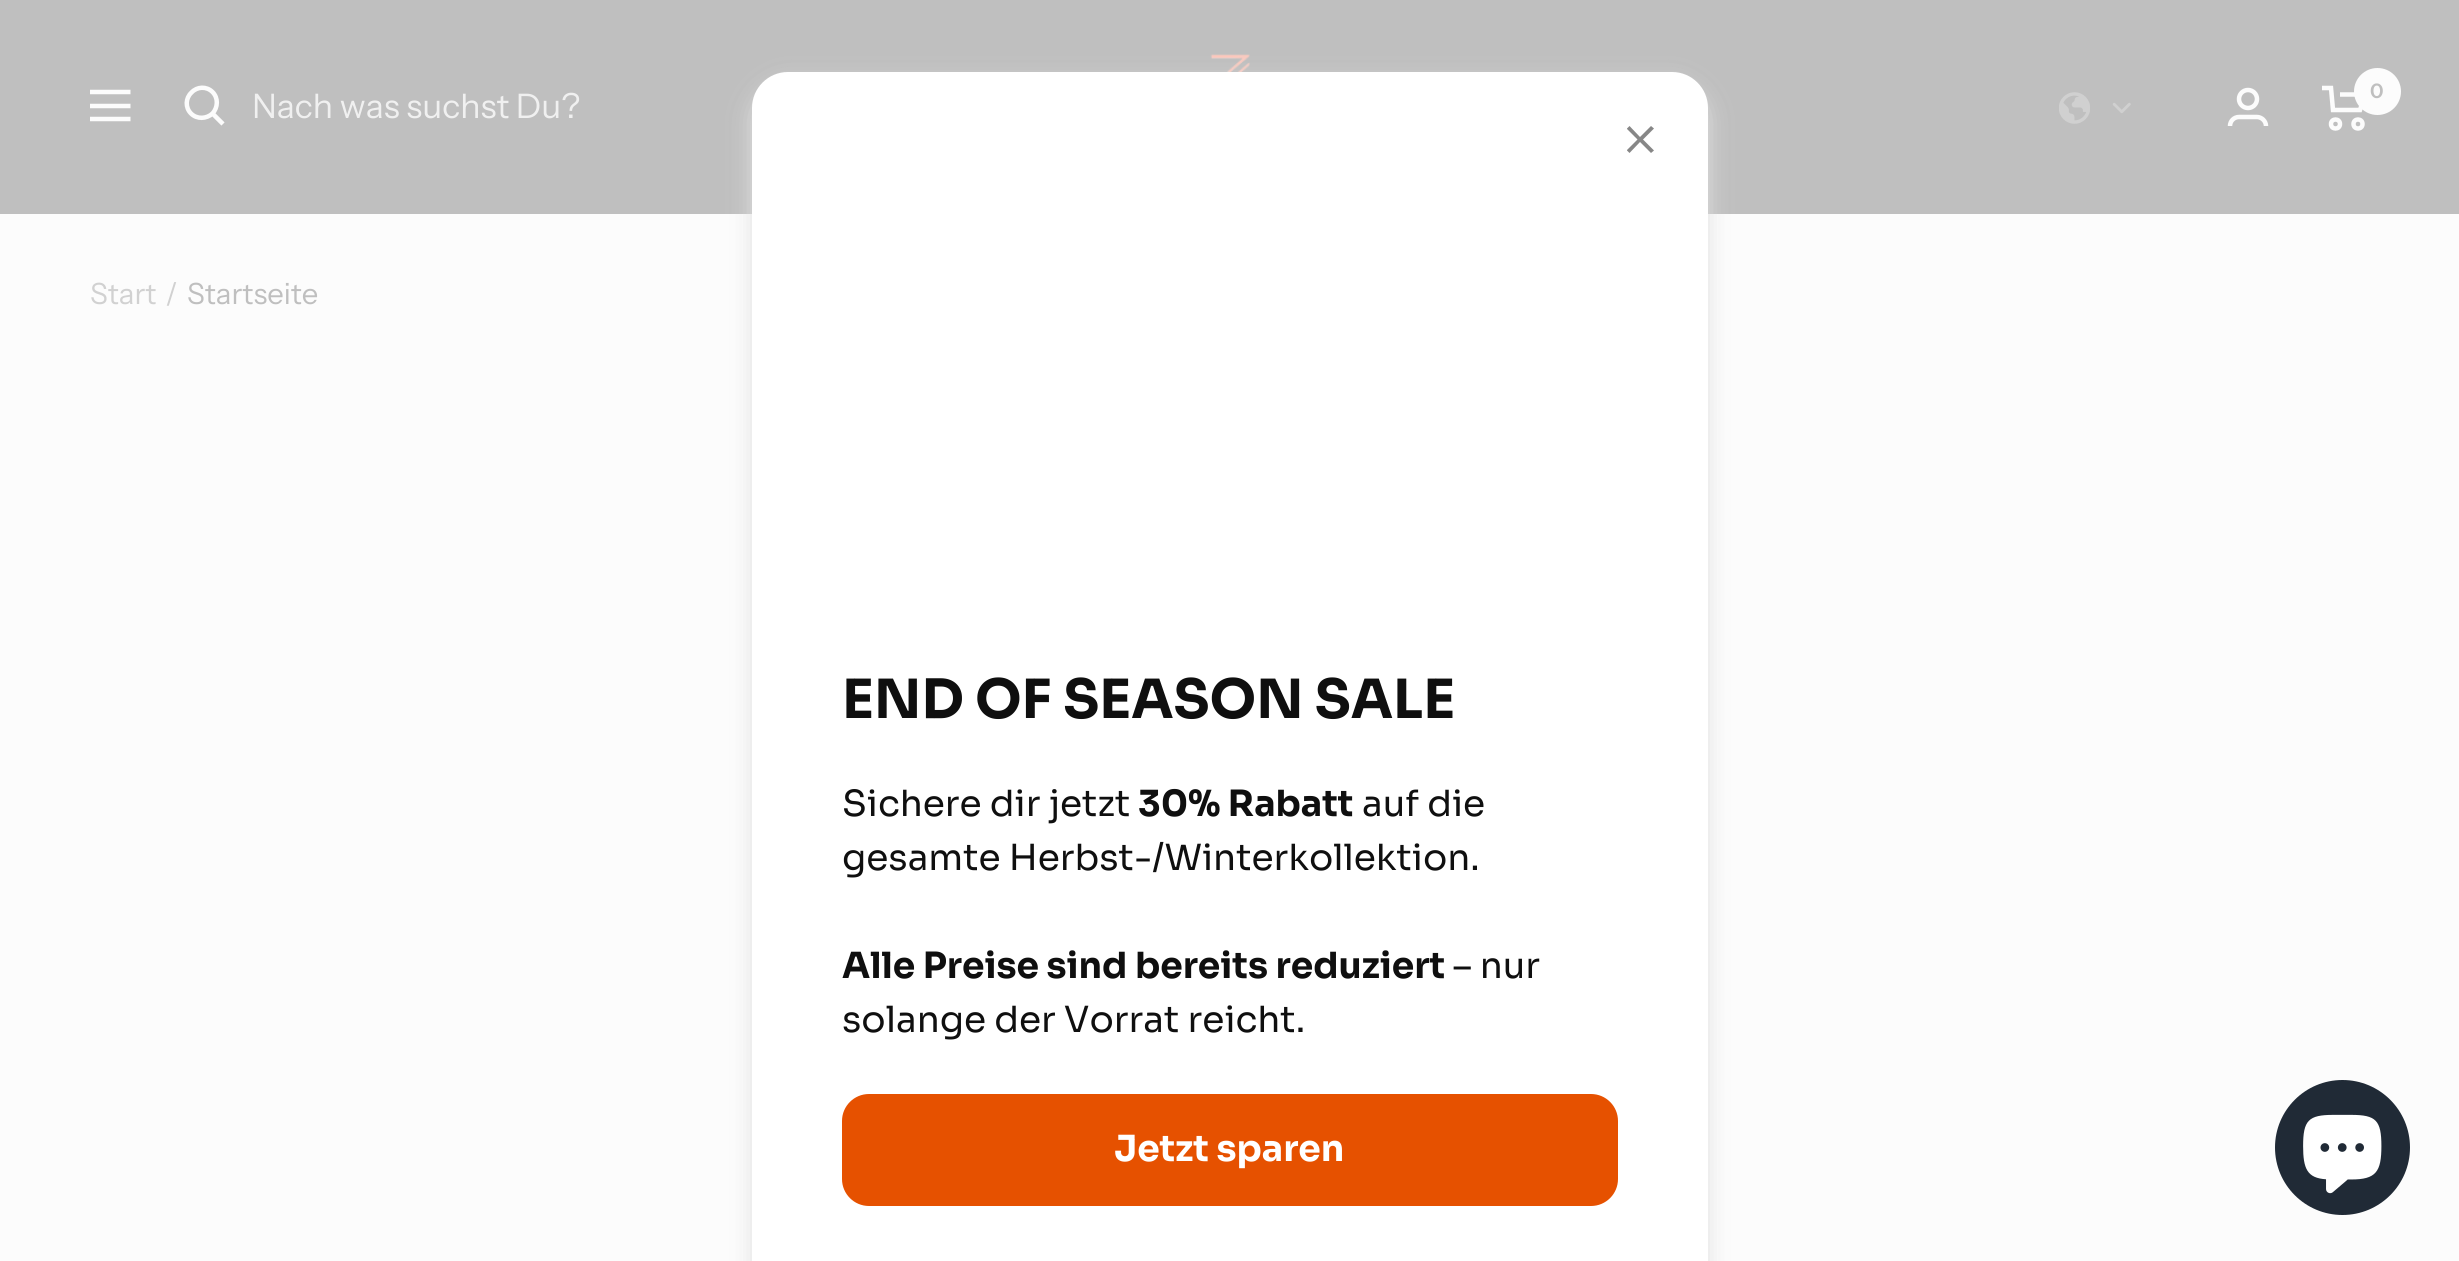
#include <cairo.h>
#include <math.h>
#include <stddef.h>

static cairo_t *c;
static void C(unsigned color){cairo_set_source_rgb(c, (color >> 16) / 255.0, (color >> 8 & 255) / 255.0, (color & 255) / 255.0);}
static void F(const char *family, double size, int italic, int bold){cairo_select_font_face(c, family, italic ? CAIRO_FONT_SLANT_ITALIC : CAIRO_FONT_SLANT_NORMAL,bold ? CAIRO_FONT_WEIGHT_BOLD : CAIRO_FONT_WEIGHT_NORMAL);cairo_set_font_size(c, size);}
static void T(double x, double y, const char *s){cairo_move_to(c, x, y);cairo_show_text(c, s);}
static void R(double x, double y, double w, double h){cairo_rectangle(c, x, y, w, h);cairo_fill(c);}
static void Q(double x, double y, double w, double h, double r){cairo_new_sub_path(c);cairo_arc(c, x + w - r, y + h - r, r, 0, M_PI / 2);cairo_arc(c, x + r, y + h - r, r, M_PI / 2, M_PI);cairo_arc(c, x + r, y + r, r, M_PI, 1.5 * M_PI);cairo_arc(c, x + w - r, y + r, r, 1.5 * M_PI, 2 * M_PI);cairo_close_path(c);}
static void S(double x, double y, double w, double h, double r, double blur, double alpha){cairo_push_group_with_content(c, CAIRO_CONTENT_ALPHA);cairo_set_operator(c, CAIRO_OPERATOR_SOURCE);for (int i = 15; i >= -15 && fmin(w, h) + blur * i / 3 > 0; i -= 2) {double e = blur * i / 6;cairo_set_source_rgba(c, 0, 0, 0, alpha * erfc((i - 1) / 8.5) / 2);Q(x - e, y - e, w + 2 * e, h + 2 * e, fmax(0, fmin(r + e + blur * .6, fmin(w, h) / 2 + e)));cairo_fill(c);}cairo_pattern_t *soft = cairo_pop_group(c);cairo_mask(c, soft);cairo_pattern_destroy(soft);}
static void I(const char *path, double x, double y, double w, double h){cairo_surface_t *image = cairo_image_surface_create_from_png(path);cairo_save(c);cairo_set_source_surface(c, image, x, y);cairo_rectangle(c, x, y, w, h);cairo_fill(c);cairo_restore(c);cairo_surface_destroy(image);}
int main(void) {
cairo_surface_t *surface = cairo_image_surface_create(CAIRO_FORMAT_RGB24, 2459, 1261);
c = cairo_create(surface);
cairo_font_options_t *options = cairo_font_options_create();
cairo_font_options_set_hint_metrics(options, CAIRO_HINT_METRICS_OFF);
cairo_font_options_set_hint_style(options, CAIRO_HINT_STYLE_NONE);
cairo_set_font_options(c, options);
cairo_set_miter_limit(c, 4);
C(0xfcfcfc);
cairo_paint(c);
C(0xbfbfbf);
R(0,0,2459,214);
I("1.png",1210,54,40,18);
cairo_new_path(c);
cairo_move_to(c,90,92);
cairo_line_to(c,130.5,92);
cairo_move_to(c,90,119);
cairo_line_to(c,130.5,119);
cairo_close_path(c);
cairo_move_to(c,90,106);
cairo_line_to(c,130.5,106);
cairo_close_path(c);
C(0xfcfcfc);
cairo_set_line_width(c,4.5);
cairo_stroke(c);
cairo_new_path(c);
cairo_move_to(c,212.5,113.5);
cairo_curve_to(c,218,107.5,218.5,98,212.5,92);
cairo_curve_to(c,206.5,86,197,86.5,191.5,92.5);
cairo_curve_to(c,185.5,98,185,107.5,191,113.5);
cairo_curve_to(c,197,119.5,206.5,119,212.5,113.5);
cairo_close_path(c);
cairo_move_to(c,212.5,113.5);
cairo_line_to(c,223,124);
cairo_stroke(c);
F("Instrument Sans",33.75,0,0);
C(0xf0f0f0);
T(252,118,"Nach was suchst Du?");
I("2.png",2059,92,31,32);
I("3.png",2112,102,19,12);
cairo_arc(c,2248,99,9,0,2 * M_PI);
C(0xfcfcfc);
cairo_stroke(c);
cairo_new_path(c);
cairo_move_to(c,2230,126);
cairo_curve_to(c,2230,121,2234,117,2239,117);
cairo_line_to(c,2257,117);
cairo_curve_to(c,2261.5,117,2266,121,2266,126);
cairo_stroke(c);
cairo_new_path(c);
cairo_move_to(c,2322,88);
cairo_line_to(c,2331,88);
cairo_line_to(c,2333,110);
cairo_line_to(c,2360,110);
cairo_line_to(c,2365,94.5);
cairo_line_to(c,2340,94.5);
cairo_stroke(c);
cairo_arc(c,2335.5,124,4.5,0,2 * M_PI);
cairo_stroke(c);
cairo_arc(c,2358,124,4.5,0,2 * M_PI);
cairo_stroke(c);
cairo_arc(c,2377.5,91.5,23.5,0,2 * M_PI);
cairo_fill(c);
F("Instrument Sans SemiBold",20,0,0);
C(0xbfbfbf);
T(2370,98,"0");
F("Instrument Sans",29.25,0,0);
C(0xd1d1d1);
T(90,304,"Start");
T(165,304,"/");
C(0xbfbfbf);
T(187,304,"Startseite");
C(0xe0e0e0);
S(752,83,956,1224,36,11,1);
C(0xffffff);
Q(752,72,956,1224,36);
cairo_fill(c);
C(0x878787);
cairo_new_path(c);
cairo_move_to(c,1629.5,126);
cairo_line_to(c,1640,137);
cairo_line_to(c,1651,126);
cairo_line_to(c,1654,128.5);
cairo_line_to(c,1643,139.5);
cairo_line_to(c,1654,150.5);
cairo_line_to(c,1651,153);
cairo_line_to(c,1640,142);
cairo_line_to(c,1629.5,153);
cairo_line_to(c,1627,150.5);
cairo_line_to(c,1627,150);
cairo_line_to(c,1637.5,139.5);
cairo_line_to(c,1627,129);
cairo_line_to(c,1627,128.5);
cairo_close_path(c);
cairo_fill(c);
F("Sora",54,0,1);
C(0x0f0f0f);
T(842,718,"END OF SEASON SALE");
F("Sora",36,0,0);
T(842,816,"Sichere dir jetzt");
F("Sora",36,0,1);
T(1138,816,"30% Rabatt");
F("Sora",36,0,0);
T(1362,816,"auf die");
T(842,870,"gesamte Herbst-/Winterkollektion.");
F("Sora",36,0,1);
T(842,978,"Alle Preise sind bereits reduziert");
F("Sora",36,0,0);
T(1453,978,"– nur");
T(842,1032,"solange der Vorrat reicht.");
C(0xe65100);
Q(842,1094,776,112,27);
cairo_fill(c);
F("Sora",36,0,1);
C(0xffffff);
T(1114,1161,"Jetzt sparen");
C(0x202a36);
cairo_new_path(c);
cairo_arc(c,2342.5,1147.5,67.5,0,2 * M_PI);
cairo_fill(c);
I("4.png",2303,1114,79,80);
cairo_surface_write_to_png(surface, "o.png");
cairo_font_options_destroy(options);
cairo_destroy(c);
cairo_surface_destroy(surface);
return 0;
}
